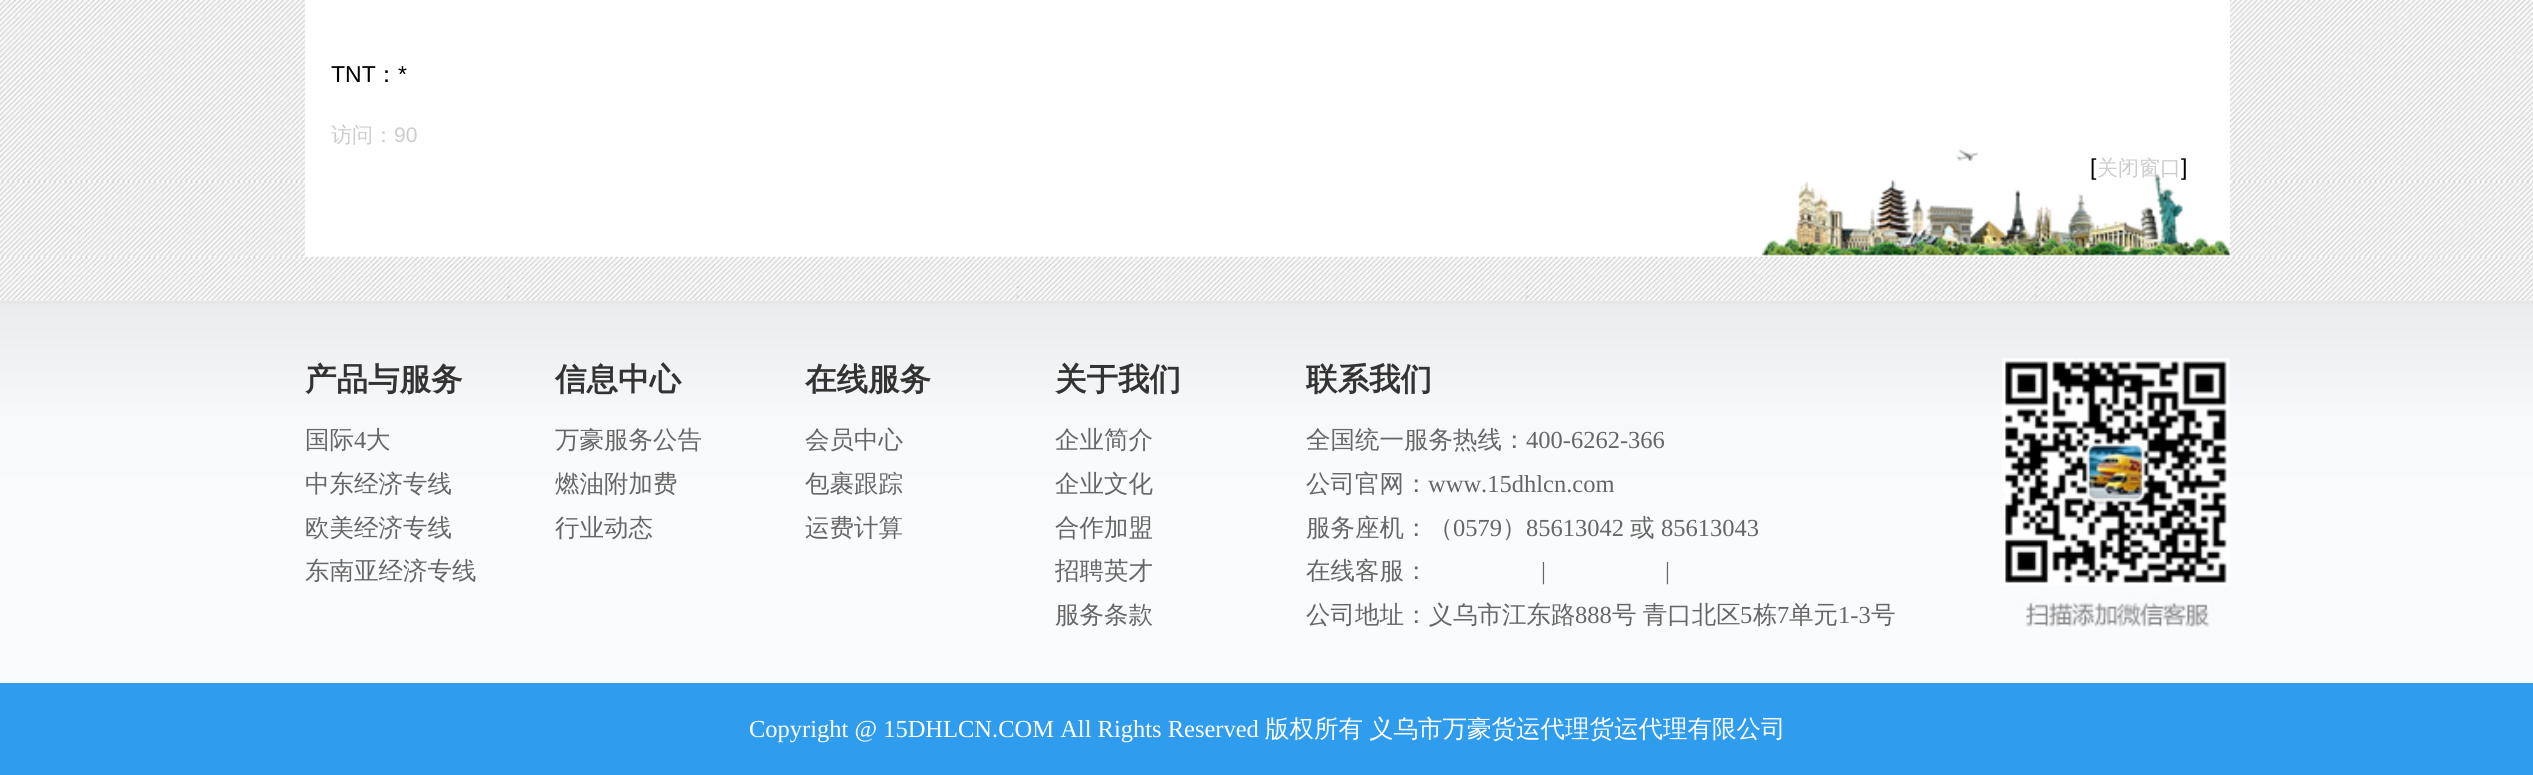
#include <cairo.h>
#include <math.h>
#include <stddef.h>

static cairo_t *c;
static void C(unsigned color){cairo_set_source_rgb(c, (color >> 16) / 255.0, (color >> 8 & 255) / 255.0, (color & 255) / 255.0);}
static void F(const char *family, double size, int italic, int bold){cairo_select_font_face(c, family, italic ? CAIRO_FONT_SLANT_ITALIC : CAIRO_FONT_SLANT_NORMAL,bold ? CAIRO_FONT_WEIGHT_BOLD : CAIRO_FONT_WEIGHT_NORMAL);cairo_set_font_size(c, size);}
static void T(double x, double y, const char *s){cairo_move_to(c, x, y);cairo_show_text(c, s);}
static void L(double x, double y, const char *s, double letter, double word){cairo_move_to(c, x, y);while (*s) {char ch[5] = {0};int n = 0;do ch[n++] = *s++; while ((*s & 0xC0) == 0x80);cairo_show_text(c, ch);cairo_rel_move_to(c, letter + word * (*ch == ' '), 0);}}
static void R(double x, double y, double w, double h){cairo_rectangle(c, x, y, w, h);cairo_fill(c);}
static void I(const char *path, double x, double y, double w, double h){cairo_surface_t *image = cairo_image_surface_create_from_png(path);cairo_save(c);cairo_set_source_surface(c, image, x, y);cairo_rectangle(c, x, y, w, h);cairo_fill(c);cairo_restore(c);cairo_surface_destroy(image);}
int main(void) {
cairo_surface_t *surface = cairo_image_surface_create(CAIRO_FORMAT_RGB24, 2533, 775);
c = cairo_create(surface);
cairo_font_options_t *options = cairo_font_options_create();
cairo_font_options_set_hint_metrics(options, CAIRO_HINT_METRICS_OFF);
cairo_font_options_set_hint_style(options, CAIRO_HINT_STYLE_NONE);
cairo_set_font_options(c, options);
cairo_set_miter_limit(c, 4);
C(0xffffff);
cairo_paint(c);
I("1.png",0,0,2533,257);
C(0xffffff);
R(305,0,1925,257);
I("2.png",1762,150,468,106);
F("Liberation Sans",23,0,0);
C(0x000000);
T(331,82,"TNT");
F("WenQuanYi Zen Hei Medium",23,0,0);
T(375,82,"：");
F("Liberation Sans",23,0,0);
T(398,82,"*");
F("WenQuanYi Zen Hei Medium",21,0,0);
C(0xcccccc);
T(331,142,"访问：");
F("Liberation Sans",21,0,0);
T(394,142,"90");
F("Liberation Sans",23,0,0);
C(0x000000);
T(2090,175,"[");
F("WenQuanYi Zen Hei Medium",21,0,0);
C(0xcccccc);
T(2097,175,"关闭窗口");
F("Liberation Sans",23,0,0);
C(0x000000);
T(2181,175,"]");
I("3.png",0,256,2533,45);
I("4.png",0,300,2533,382);
F("WenQuanYi Zen Hei",31.5,0,1);
C(0x333333);
T(305,390,"产品与服务");
F("WenQuanYi Zen Hei Medium",24.5,0,0);
C(0x666666);
T(305,448,"国际");
F("Liberation Serif",24.5,0,0);
T(354,448,"4");
F("WenQuanYi Zen Hei Medium",24.5,0,0);
T(366,448,"大");
T(305,492,"中东经济专线");
T(305,536,"欧美经济专线");
T(305,579,"东南亚经济专线");
F("WenQuanYi Zen Hei",31.5,0,1);
C(0x333333);
T(555,390,"信息中心");
F("WenQuanYi Zen Hei Medium",24.5,0,0);
C(0x666666);
T(555,448,"万豪服务公告");
T(555,492,"燃油附加费");
T(555,536,"行业动态");
F("WenQuanYi Zen Hei",31.5,0,1);
C(0x333333);
T(805,390,"在线服务");
F("WenQuanYi Zen Hei Medium",24.5,0,0);
C(0x666666);
T(805,448,"会员中心");
T(805,492,"包裹跟踪");
T(805,536,"运费计算");
F("WenQuanYi Zen Hei",31.5,0,1);
C(0x333333);
T(1055,390,"关于我们");
F("WenQuanYi Zen Hei Medium",24.5,0,0);
C(0x666666);
T(1055,448,"企业简介");
T(1055,492,"企业文化");
T(1055,536,"合作加盟");
T(1055,579,"招聘英才");
T(1055,623,"服务条款");
F("WenQuanYi Zen Hei",31.5,0,1);
C(0x333333);
T(1306,390,"联系我们");
F("WenQuanYi Zen Hei Medium",24.5,0,0);
C(0x666666);
T(1306,448,"全国统一服务热线：");
F("Liberation Serif",24.5,0,0);
T(1526,448,"400-6262-366");
F("WenQuanYi Zen Hei Medium",24.5,0,0);
T(1306,492,"公司官网：");
F("Liberation Serif",24.5,0,0);
T(1428,492,"www.15dhlcn.com");
F("WenQuanYi Zen Hei Medium",24.5,0,0);
T(1306,536,"服务座机：（");
F("Liberation Serif",24.5,0,0);
T(1453,536,"0579");
F("WenQuanYi Zen Hei Medium",24.5,0,0);
T(1502,536,"）");
F("Liberation Serif",24.5,0,0);
T(1526,536,"85613042");
F("WenQuanYi Zen Hei Medium",24.5,0,0);
T(1630,536,"或");
F("Liberation Serif",24.5,0,0);
T(1661,536,"85613043");
F("WenQuanYi Zen Hei Medium",24.5,0,0);
T(1306,579,"在线客服：");
F("Liberation Serif",24.5,0,0);
T(1541,579,"|");
T(1665,579,"|");
F("WenQuanYi Zen Hei Medium",24.5,0,0);
T(1306,623,"公司地址：义乌市江东路");
F("Liberation Serif",24.5,0,0);
T(1575,623,"888");
F("WenQuanYi Zen Hei Medium",24.5,0,0);
L(1612,623,"号 青口北区",0,-1);
F("Liberation Serif",24.5,0,0);
T(1740,623,"5");
F("WenQuanYi Zen Hei Medium",24.5,0,0);
T(1753,623,"栋");
F("Liberation Serif",24.5,0,0);
T(1777,623,"7");
F("WenQuanYi Zen Hei Medium",24.5,0,0);
T(1789,623,"单元");
F("Liberation Serif",24.5,0,0);
T(1838,623,"1-3");
F("WenQuanYi Zen Hei Medium",24.5,0,0);
T(1871,623,"号");
I("5.png",2002,358,228,269);
C(0x2f9cee);
R(0,683,2533,92);
F("Liberation Serif",24.5,0,0);
C(0xffffff);
T(749,737,"Copyright @ 15DHLCN.COM All Rights Reserved");
F("WenQuanYi Zen Hei Medium",24.5,0,0);
T(1265,737,"版权所有");
T(1369,737,"义乌市万豪货运代理货运代理有限公司");
cairo_surface_write_to_png(surface, "o.png");
cairo_font_options_destroy(options);
cairo_destroy(c);
cairo_surface_destroy(surface);
return 0;
}
